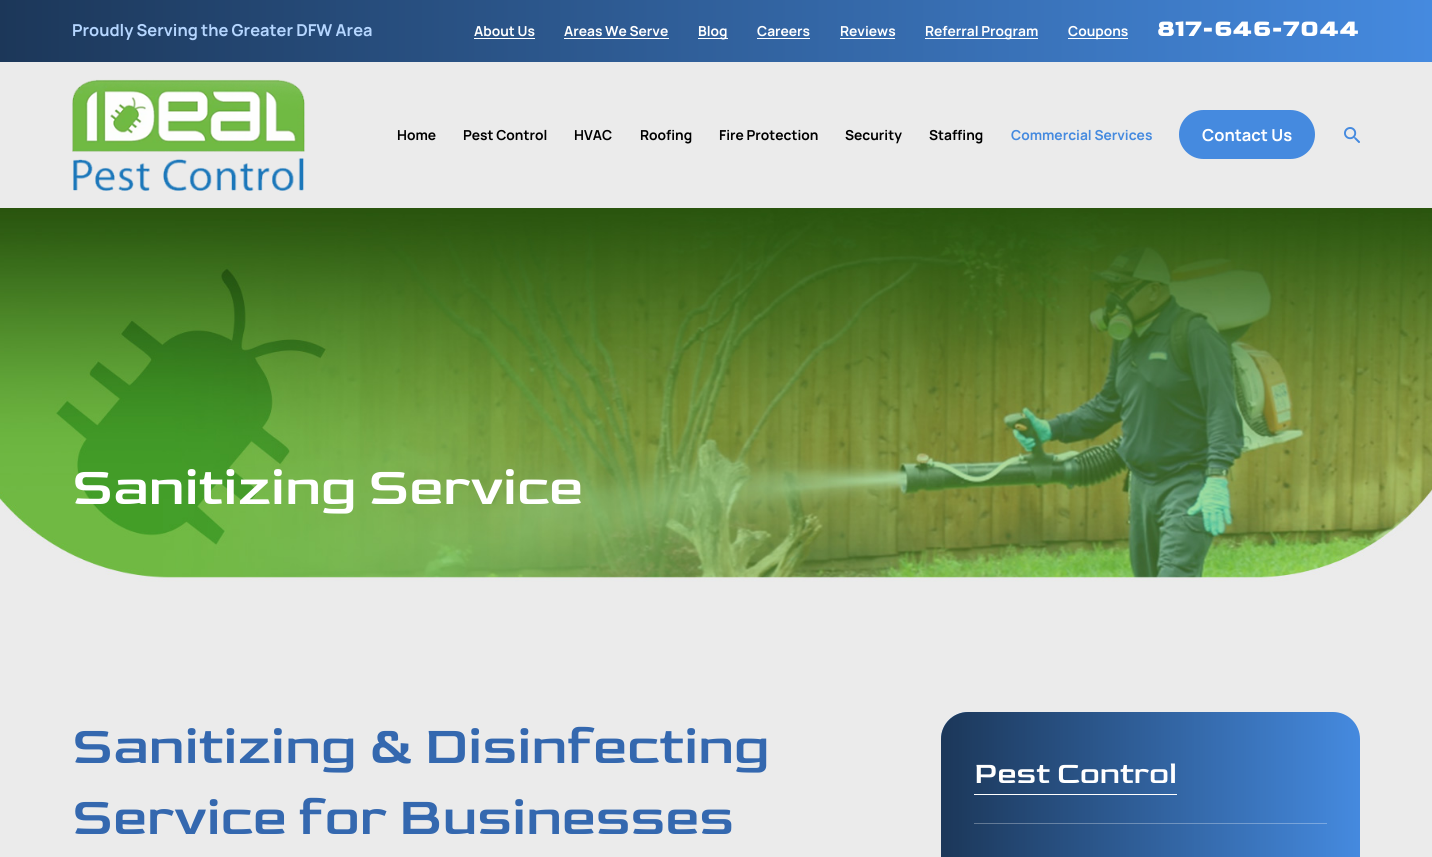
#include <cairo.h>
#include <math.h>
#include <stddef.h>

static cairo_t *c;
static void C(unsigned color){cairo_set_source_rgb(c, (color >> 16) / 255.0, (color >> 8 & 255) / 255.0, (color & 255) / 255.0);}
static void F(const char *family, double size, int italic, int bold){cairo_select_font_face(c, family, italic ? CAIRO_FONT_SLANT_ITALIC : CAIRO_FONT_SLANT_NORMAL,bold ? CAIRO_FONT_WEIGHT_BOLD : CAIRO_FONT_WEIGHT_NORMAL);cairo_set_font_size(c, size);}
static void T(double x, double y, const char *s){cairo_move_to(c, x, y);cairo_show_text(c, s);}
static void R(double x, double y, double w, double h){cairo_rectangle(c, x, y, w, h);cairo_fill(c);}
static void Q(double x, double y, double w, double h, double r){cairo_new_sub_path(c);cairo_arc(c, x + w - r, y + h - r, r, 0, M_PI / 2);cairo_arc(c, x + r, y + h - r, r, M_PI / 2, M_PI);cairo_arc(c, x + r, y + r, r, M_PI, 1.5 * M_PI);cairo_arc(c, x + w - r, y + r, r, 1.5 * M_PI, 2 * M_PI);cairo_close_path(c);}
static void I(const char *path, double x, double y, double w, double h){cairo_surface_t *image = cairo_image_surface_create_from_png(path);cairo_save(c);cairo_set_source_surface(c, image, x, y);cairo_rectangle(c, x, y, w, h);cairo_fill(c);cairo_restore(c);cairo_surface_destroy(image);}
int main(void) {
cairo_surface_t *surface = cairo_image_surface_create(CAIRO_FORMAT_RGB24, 1432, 857);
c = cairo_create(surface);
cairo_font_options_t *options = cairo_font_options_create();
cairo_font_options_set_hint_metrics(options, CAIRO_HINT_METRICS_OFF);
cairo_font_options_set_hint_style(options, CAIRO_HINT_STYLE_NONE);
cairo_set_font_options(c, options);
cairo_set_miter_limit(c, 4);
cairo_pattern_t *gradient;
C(0xffffff);
cairo_paint(c);
C(0xebebeb);
R(0,62,1432,146);
gradient = cairo_pattern_create_linear(0,31,1432,31);
cairo_pattern_add_color_stop_rgba(gradient,0,0.11,0.216,0.349,1);
cairo_pattern_add_color_stop_rgba(gradient,1,0.271,0.541,0.875,1);
cairo_set_source(c,gradient);
cairo_pattern_destroy(gradient);
R(0,0,1432,62);
F("Manrope",16.4,0,1);
C(0xb5d6ff);
T(72,36,"Proudly Serving the Greater DFW Area");
F("Manrope",13.75,0,1);
C(0xffffff);
T(474,36,"About Us");
R(474,38,61,1);
T(564,36,"Areas We Serve");
R(564,38,105,1);
T(698,36,"Blog");
R(698,38,30,1);
T(757,36,"Careers");
R(757,38,53,1);
T(840,36,"Reviews");
R(840,38,55,1);
T(925,36,"Referral Program");
R(925,38,113,1);
T(1068,36,"Coupons");
R(1068,38,60,1);
F("Goldman",24.5,0,1);
T(1157,36,"817-646-7044");
I("1.png",72,79,233,112);
F("Manrope",13.75,0,1);
C(0x000000);
T(397,140,"Home");
T(463,140,"Pest Control");
T(574,140,"HVAC");
T(640,140,"Roofing");
T(719,140,"Fire Protection");
T(845,140,"Security");
T(929,140,"Staffing");
C(0x458adf);
T(1011,140,"Commercial Services");
Q(1179,110,136,49,24.5);
cairo_fill(c);
F("Manrope",16.5,0,1);
C(0xffffff);
T(1202,141,"Contact Us");
I("2.png",1344,127,16,16);
I("3.png",0,208,1432,398);
F("Goldman",54.5,0,0);
T(72,504,"Sanitizing Service");
C(0xebebeb);
R(0,606,1432,251);
C(0x3468af);
T(72,763,"Sanitizing & Disinfecting");
T(72,834,"Service for Businesses");
C(0x458adf);
Q(941,712,419,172,27);
cairo_fill(c);
gradient = cairo_pattern_create_linear(941,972,1360,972);
cairo_pattern_add_color_stop_rgba(gradient,0,0,0,0,.6);
cairo_pattern_add_color_stop_rgba(gradient,1,0,0,0,0);
cairo_set_source(c,gradient);
cairo_pattern_destroy(gradient);
Q(941,712,419,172,27);
cairo_fill(c);
cairo_set_source_rgba(c,1,1,1,0.3);
R(974,823,353,1);
F("Goldman",30.75,0,0);
C(0xffffff);
T(974,783,"Pest Control");
R(974,794,203,1);
cairo_surface_write_to_png(surface, "o.png");
cairo_font_options_destroy(options);
cairo_destroy(c);
cairo_surface_destroy(surface);
return 0;
}
